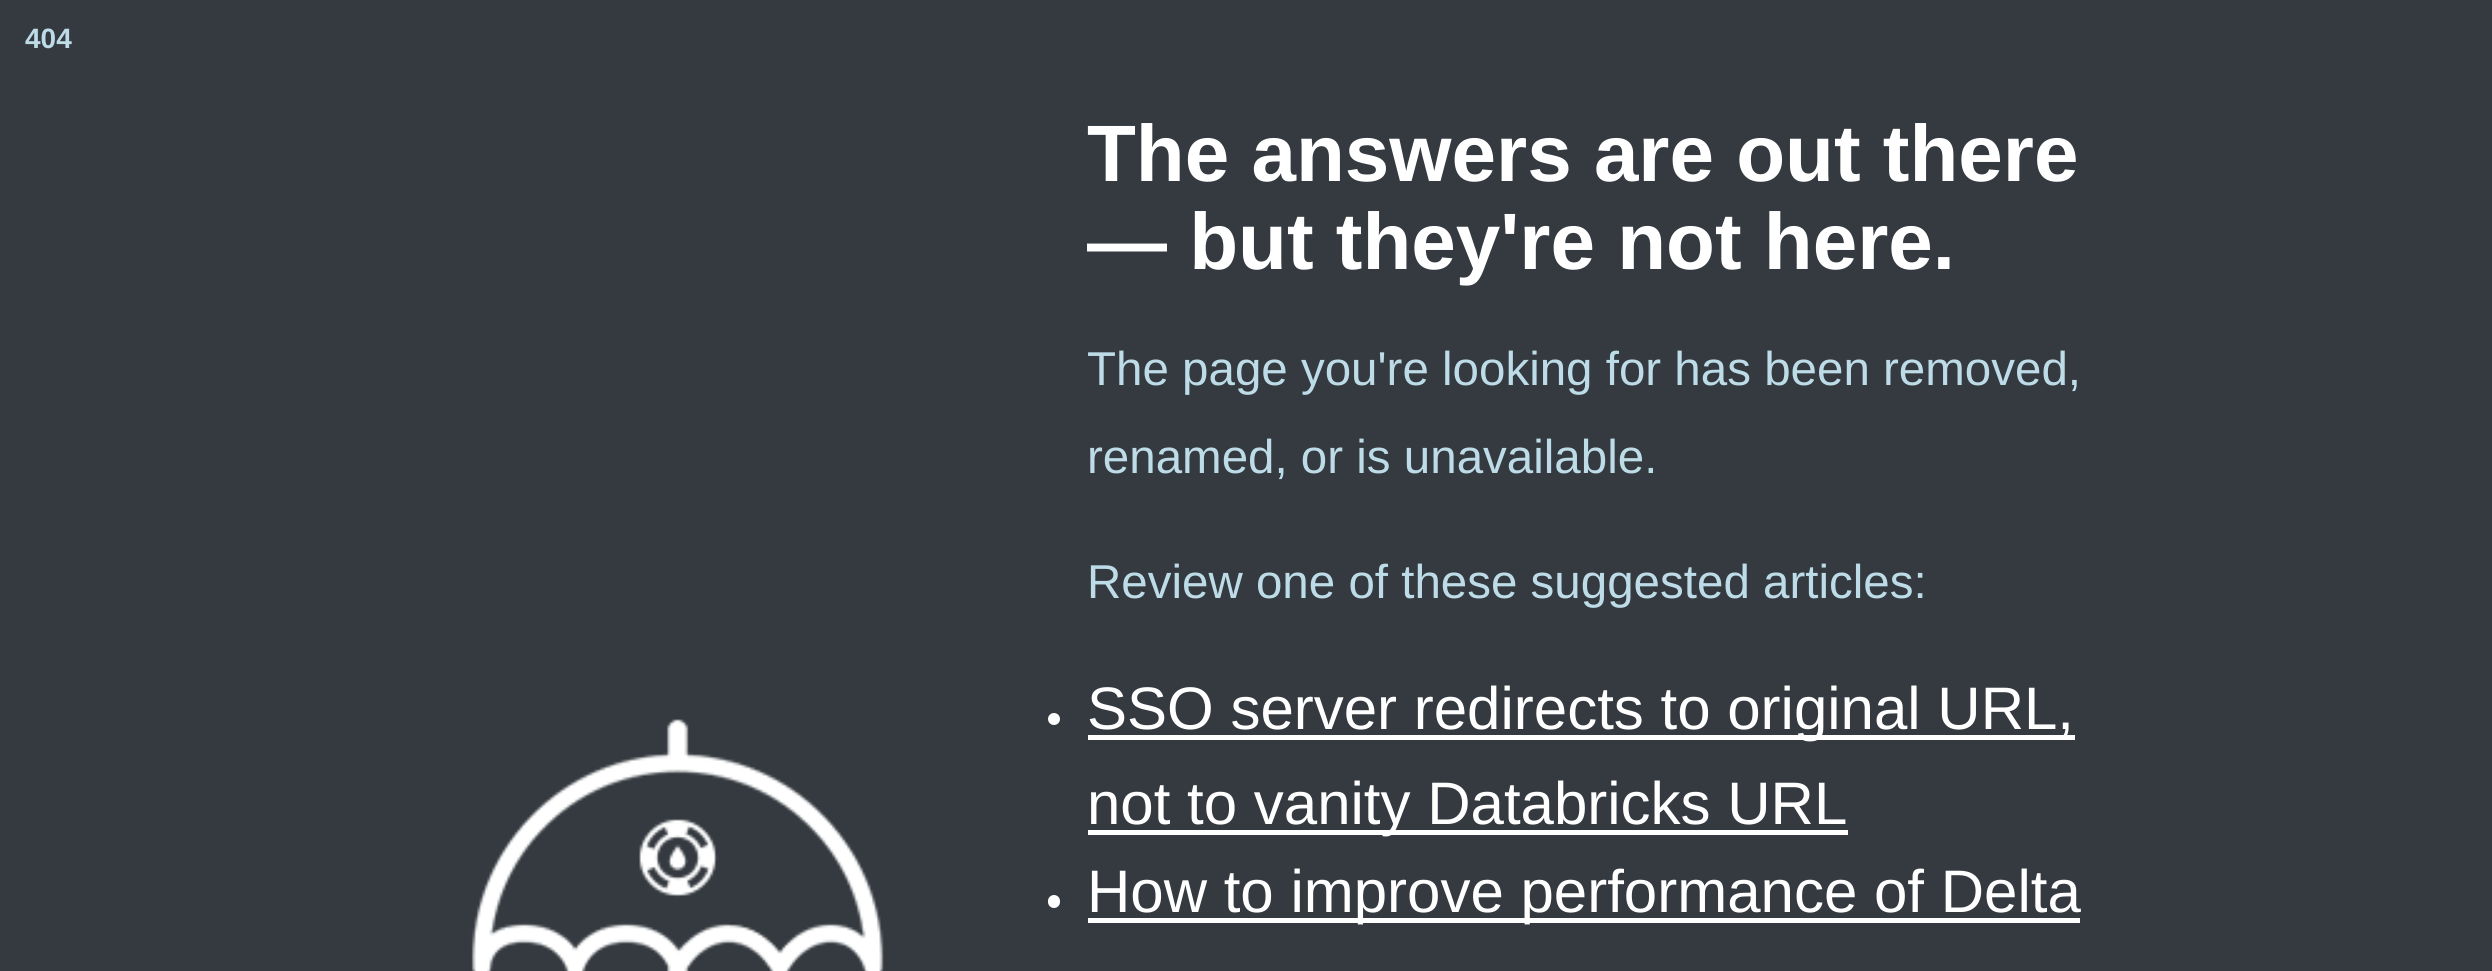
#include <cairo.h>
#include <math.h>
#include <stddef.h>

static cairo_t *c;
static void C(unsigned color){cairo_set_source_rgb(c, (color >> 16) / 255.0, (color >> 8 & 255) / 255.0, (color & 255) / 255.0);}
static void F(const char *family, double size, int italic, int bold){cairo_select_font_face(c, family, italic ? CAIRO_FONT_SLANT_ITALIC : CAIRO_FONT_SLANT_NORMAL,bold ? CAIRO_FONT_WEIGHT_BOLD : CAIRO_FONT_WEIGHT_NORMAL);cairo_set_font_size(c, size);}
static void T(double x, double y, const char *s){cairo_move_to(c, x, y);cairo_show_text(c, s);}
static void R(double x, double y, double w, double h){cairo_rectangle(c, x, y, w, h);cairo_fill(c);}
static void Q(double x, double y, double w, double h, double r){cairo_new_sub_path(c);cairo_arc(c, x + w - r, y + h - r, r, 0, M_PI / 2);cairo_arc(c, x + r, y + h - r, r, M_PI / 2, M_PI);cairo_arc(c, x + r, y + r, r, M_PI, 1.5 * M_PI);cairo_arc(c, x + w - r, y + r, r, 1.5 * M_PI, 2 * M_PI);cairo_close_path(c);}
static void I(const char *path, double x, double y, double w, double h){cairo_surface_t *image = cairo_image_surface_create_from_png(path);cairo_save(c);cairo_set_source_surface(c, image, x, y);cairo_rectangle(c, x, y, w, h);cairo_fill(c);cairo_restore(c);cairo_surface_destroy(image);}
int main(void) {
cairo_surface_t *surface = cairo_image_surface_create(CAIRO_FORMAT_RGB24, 2492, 971);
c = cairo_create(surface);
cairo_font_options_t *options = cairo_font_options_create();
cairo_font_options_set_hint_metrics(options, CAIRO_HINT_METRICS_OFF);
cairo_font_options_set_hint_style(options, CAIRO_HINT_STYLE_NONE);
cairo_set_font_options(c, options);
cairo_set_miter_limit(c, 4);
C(0x343a40);
cairo_paint(c);
F("Liberation Sans",28,0,1);
C(0xbedce8);
T(25,48,"404");
I("1.png",471,719,413,252);
F("Liberation Sans",80,0,1);
C(0xffffff);
T(1087,181,"The answers are out there");
T(1087,269,"— but they're not here.");
F("Liberation Sans",47.5,0,0);
C(0xbedce8);
T(1087,385,"The page you're looking for has been removed,");
T(1087,473,"renamed, or is unavailable.");
T(1087,598,"Review one of these suggested articles:");
C(0xffffff);
cairo_new_path(c);
cairo_arc(c,1054,719,6,0,2 * M_PI);
cairo_fill(c);
R(1088,735,987,5);
F("Liberation Sans",60,0,0);
T(1087,729,"SSO server redirects to original URL,");
R(1088,830,760,5);
T(1087,824,"not to vanity Databricks URL");
Q(1048,895,12,13,6);
cairo_fill(c);
R(1088,918,992,5);
T(1087,912,"How to improve performance of Delta");
cairo_surface_write_to_png(surface, "o.png");
cairo_font_options_destroy(options);
cairo_destroy(c);
cairo_surface_destroy(surface);
return 0;
}
